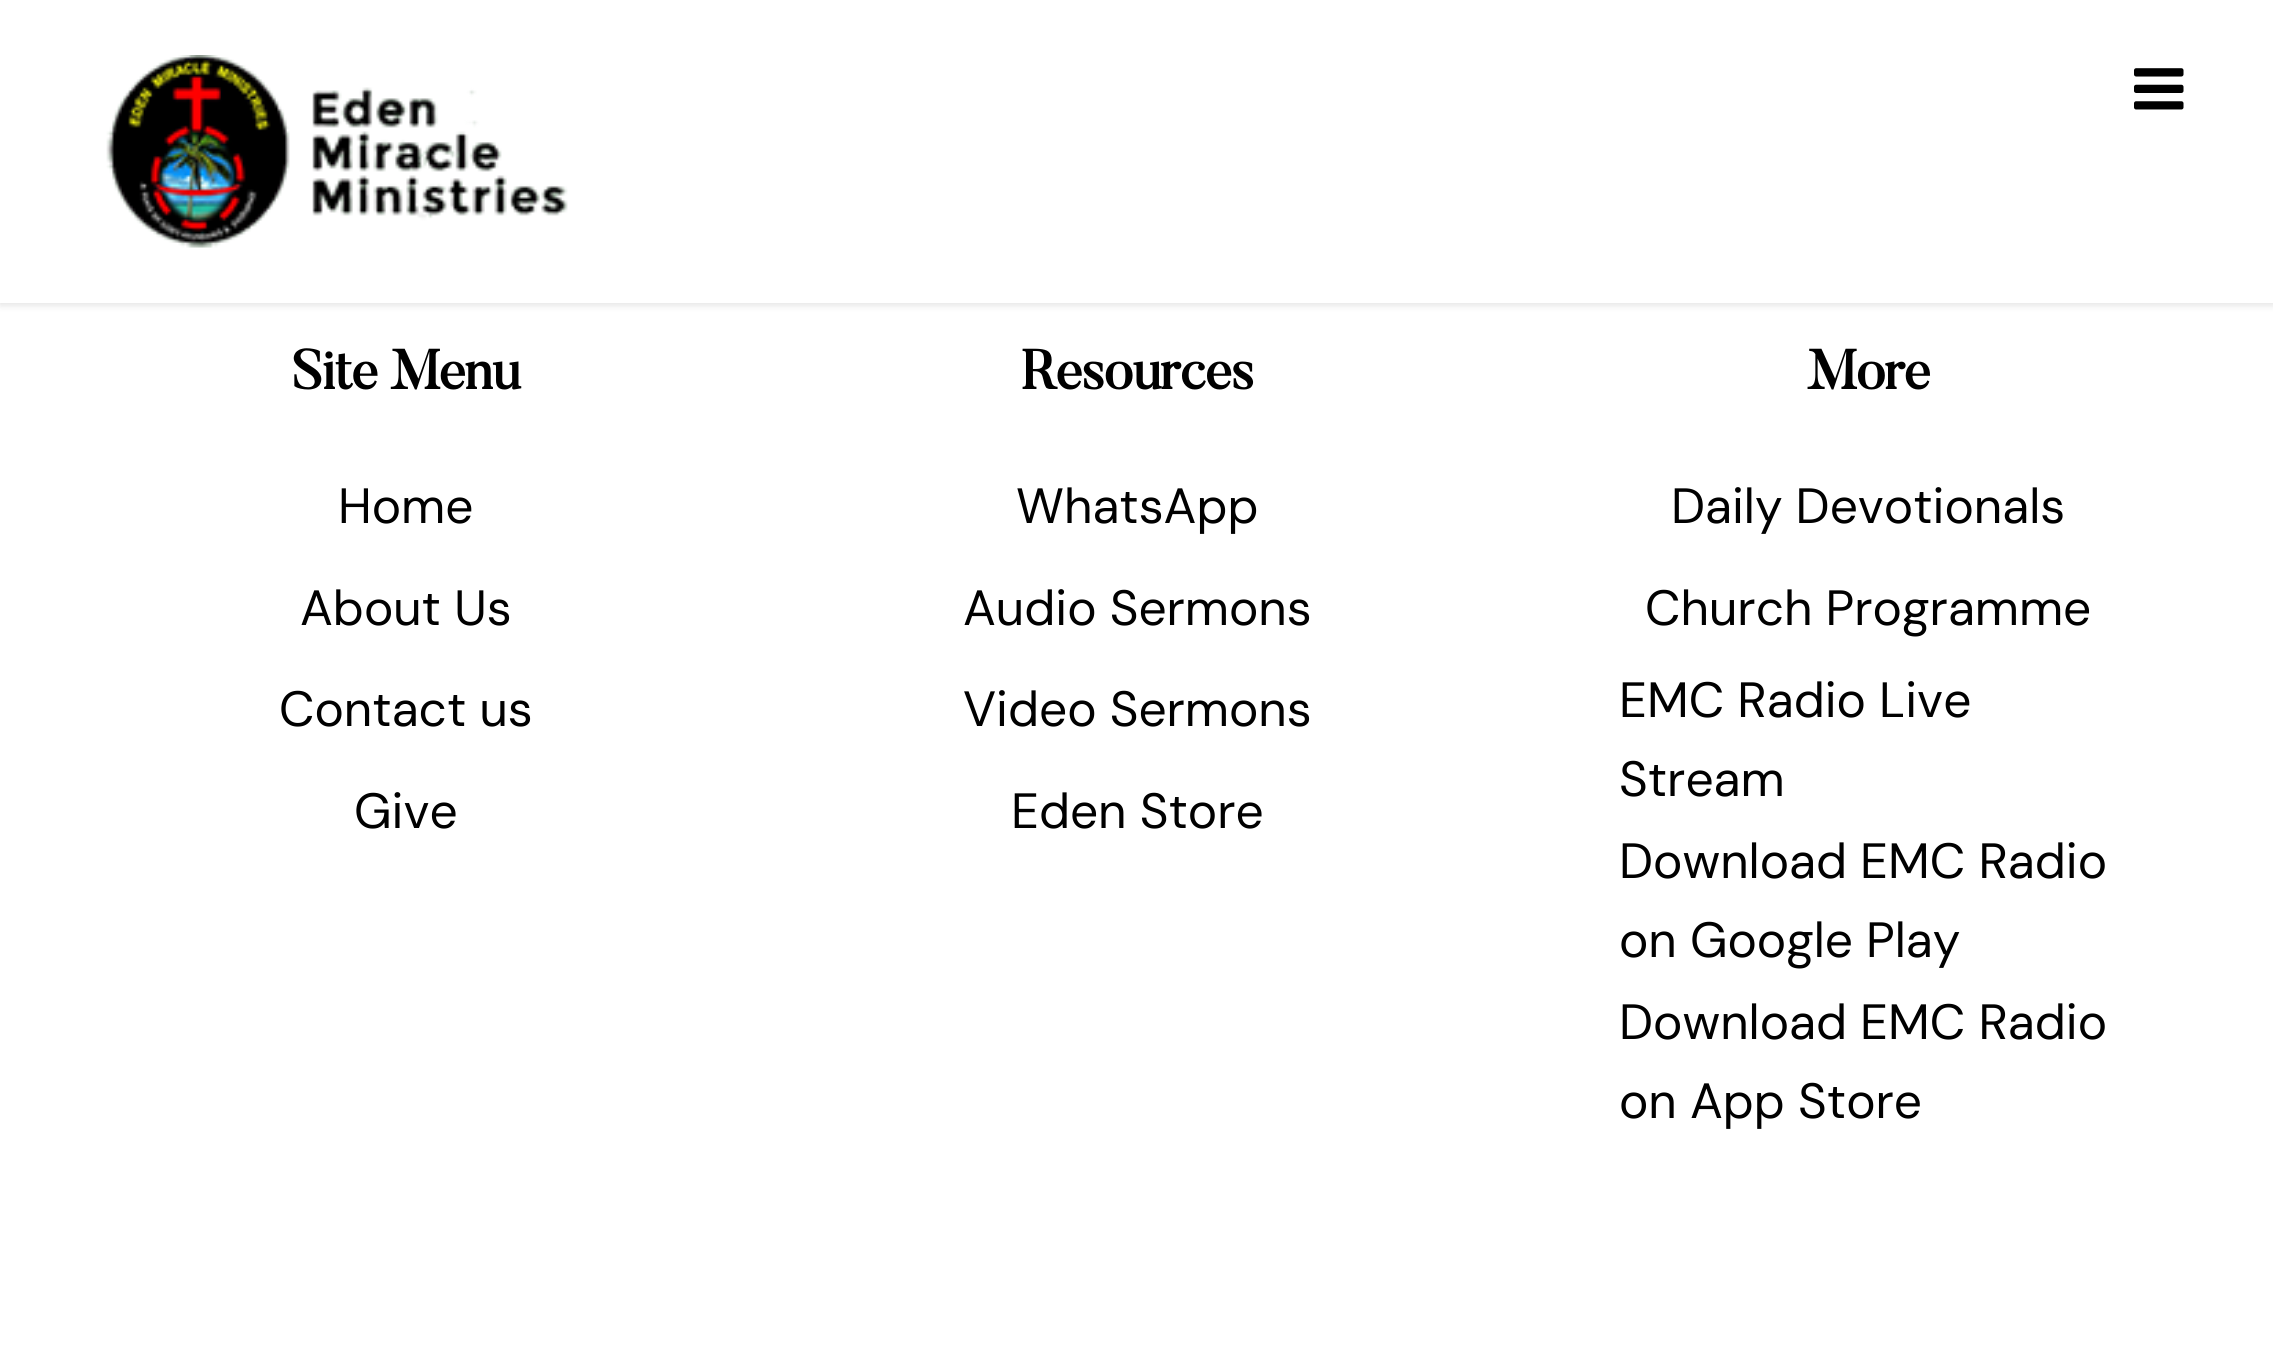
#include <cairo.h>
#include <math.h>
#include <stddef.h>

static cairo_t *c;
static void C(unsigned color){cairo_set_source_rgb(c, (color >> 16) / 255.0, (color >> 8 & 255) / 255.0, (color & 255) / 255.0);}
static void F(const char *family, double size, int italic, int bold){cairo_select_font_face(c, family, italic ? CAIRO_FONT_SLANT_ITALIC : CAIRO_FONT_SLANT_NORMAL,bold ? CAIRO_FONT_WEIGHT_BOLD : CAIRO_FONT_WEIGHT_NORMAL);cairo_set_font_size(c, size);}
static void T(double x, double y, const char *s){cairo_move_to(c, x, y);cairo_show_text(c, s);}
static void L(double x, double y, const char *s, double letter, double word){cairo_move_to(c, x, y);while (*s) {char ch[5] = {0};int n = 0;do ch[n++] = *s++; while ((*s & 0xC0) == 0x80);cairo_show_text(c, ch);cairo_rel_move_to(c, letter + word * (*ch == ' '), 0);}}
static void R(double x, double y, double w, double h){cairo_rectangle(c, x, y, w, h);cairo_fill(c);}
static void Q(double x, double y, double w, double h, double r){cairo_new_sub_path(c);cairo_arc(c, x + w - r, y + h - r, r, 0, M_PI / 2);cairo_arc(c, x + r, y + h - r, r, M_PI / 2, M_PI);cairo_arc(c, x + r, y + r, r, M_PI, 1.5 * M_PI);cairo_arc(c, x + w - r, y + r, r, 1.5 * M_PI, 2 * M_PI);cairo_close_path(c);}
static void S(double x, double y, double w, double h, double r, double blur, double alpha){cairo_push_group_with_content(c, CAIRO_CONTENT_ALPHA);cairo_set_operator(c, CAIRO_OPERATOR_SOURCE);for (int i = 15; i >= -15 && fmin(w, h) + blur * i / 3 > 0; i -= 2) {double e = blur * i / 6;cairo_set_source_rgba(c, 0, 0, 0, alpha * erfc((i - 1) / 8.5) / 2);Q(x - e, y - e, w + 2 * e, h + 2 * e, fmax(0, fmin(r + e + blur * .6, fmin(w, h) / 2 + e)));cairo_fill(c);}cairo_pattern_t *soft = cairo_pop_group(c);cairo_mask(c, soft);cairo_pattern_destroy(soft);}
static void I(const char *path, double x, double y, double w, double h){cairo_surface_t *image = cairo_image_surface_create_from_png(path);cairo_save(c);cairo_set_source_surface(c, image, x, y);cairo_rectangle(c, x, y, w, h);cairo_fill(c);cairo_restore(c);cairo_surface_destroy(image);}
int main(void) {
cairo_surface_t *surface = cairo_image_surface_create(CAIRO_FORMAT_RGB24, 2273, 1356);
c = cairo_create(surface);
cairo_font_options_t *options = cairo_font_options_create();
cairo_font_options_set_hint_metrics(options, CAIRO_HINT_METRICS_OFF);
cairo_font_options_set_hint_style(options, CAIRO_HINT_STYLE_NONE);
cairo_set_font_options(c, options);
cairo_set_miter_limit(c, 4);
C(0xffffff);
cairo_paint(c);
C(0x000000);
S(0,3,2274,302,0,4,.12);
C(0xffffff);
R(0,0,2273,303);
I("1.png",106,55,462,193);
I("2.png",2134,68,50,42);
F("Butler",55,0,1);
C(0x000000);
L(292,389,"Site Menu",-.9,0);
F("DM Sans",49.5,0,0);
T(338,523,"Home");
T(300,625,"About Us");
T(279,726,"Contact us");
T(354,828,"Give");
F("Butler",55,0,1);
L(1021,389,"Resources",-.9,0);
F("DM Sans",49.5,0,0);
T(1016,523,"WhatsApp");
T(963,625,"Audio Sermons");
T(963,726,"Video Sermons");
T(1011,828,"Eden Store");
F("Butler",55,0,1);
L(1807,389,"More",-.9,0);
F("DM Sans",49.5,0,0);
T(1671,523,"Daily Devotionals");
T(1645,625,"Church Programme");
T(1619,717,"EMC Radio Live");
T(1619,796,"Stream");
T(1619,878,"Download EMC Radio");
T(1619,957,"on Google Play");
T(1619,1039,"Download EMC Radio");
T(1619,1118,"on App Store");
cairo_surface_write_to_png(surface, "o.png");
cairo_font_options_destroy(options);
cairo_destroy(c);
cairo_surface_destroy(surface);
return 0;
}
